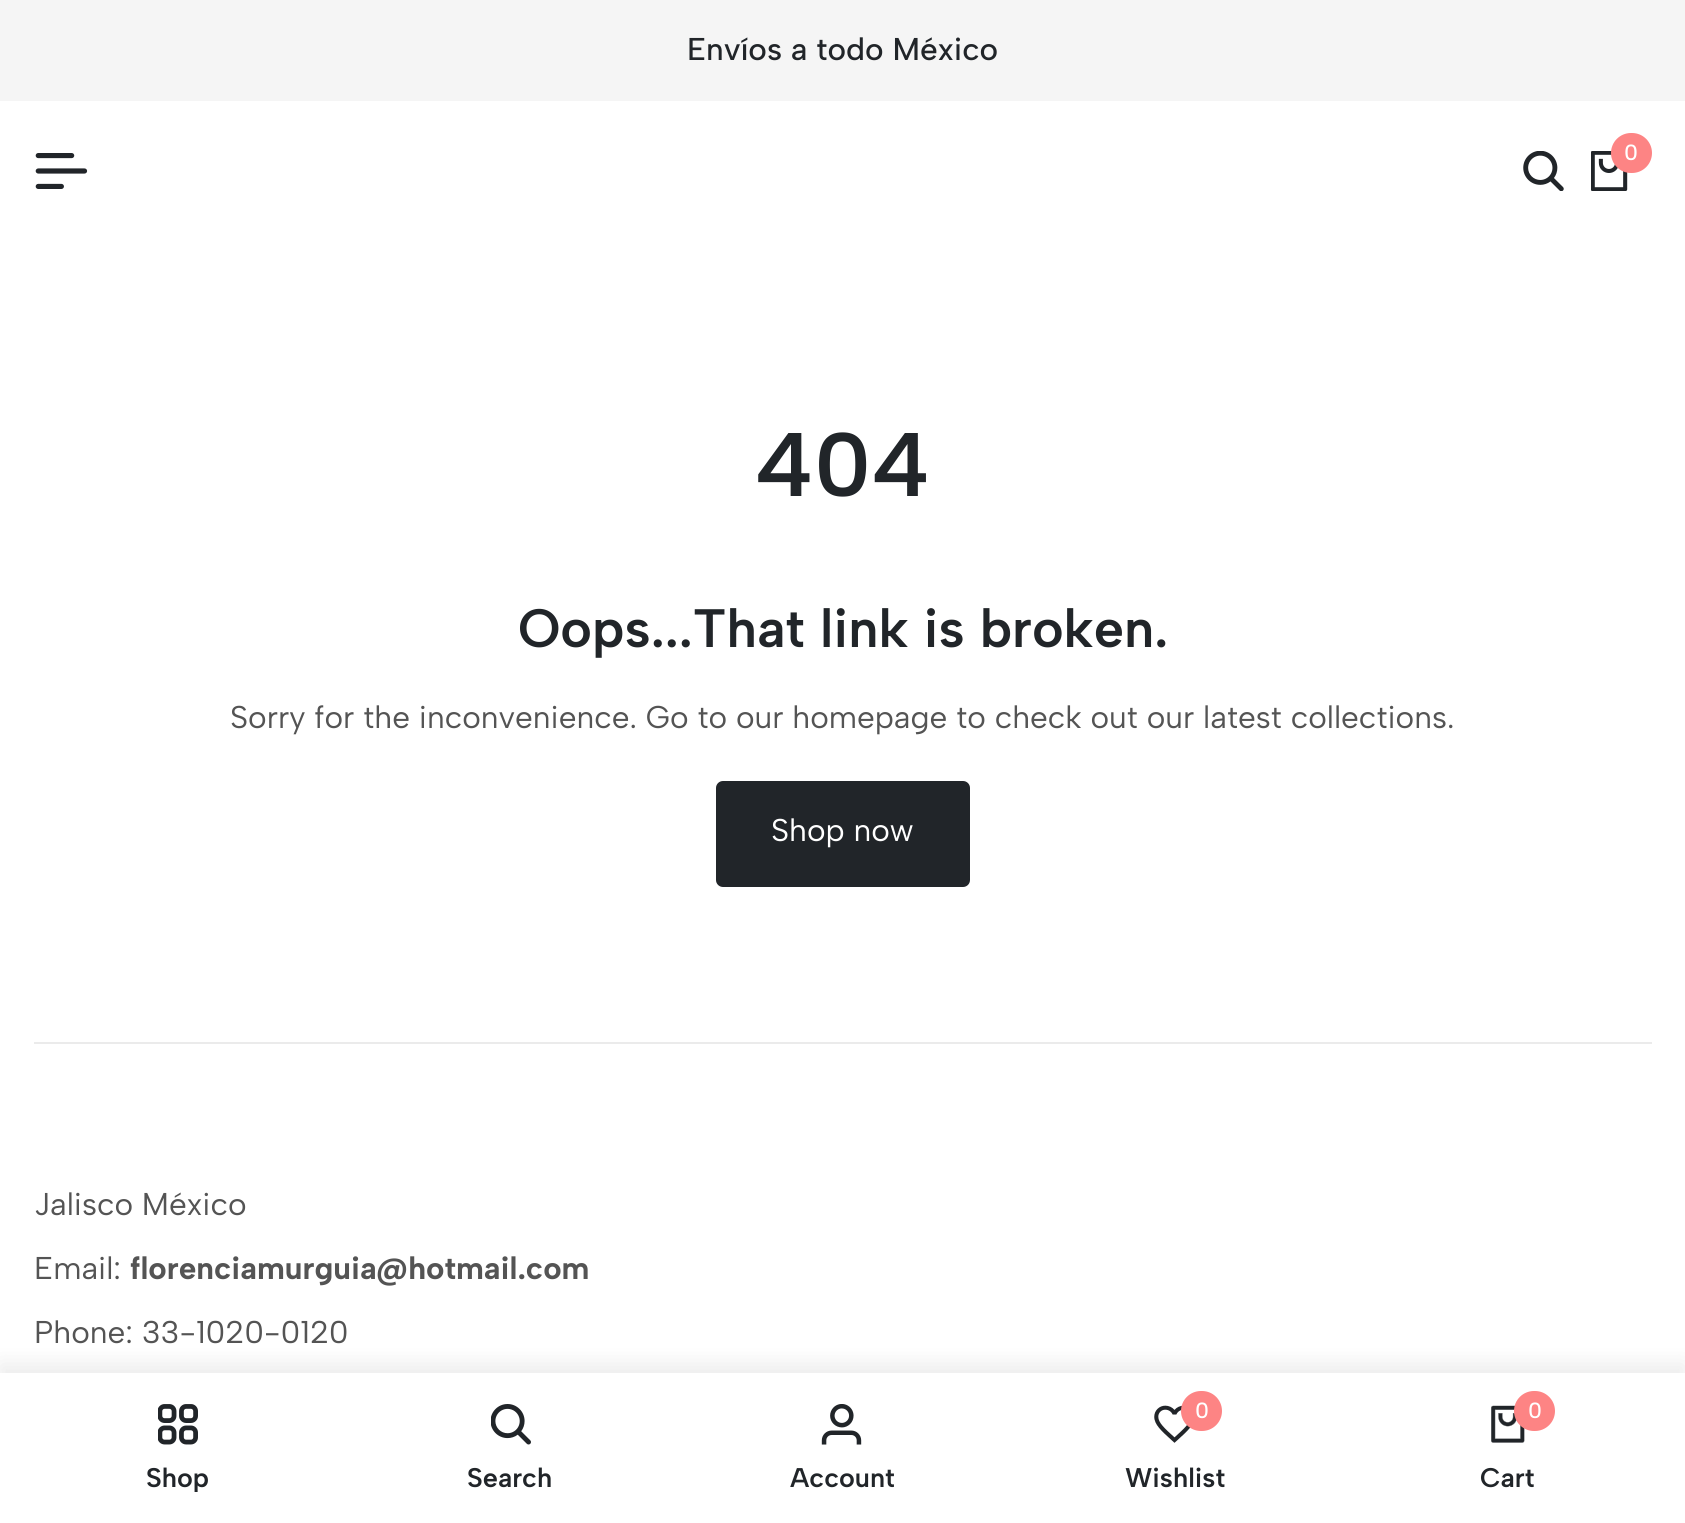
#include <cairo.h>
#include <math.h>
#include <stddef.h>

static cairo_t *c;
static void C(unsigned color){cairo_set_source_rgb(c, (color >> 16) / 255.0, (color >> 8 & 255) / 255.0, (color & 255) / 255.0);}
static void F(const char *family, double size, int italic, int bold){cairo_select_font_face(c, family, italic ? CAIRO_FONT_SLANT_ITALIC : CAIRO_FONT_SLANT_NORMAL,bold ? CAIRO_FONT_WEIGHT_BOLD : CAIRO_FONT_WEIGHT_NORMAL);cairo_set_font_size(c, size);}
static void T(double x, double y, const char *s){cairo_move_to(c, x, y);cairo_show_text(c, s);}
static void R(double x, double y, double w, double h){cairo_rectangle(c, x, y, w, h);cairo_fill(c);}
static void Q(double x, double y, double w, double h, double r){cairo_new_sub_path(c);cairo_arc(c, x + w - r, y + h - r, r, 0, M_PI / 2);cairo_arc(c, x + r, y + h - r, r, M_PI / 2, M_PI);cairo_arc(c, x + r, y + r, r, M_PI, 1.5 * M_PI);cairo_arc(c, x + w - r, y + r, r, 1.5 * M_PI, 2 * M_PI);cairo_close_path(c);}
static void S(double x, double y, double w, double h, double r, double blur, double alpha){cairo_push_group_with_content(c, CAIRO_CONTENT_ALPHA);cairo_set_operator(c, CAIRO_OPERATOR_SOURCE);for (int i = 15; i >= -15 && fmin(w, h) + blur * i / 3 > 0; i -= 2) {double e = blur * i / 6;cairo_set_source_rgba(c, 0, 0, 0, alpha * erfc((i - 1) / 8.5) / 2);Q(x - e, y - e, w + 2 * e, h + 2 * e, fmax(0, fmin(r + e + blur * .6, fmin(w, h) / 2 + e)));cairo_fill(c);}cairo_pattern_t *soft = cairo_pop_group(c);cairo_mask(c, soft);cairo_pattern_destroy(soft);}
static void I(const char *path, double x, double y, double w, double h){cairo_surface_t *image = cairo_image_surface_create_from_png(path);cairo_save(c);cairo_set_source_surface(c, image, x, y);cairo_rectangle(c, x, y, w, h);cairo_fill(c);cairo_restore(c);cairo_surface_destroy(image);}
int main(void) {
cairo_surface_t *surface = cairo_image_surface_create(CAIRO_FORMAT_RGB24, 1685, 1523);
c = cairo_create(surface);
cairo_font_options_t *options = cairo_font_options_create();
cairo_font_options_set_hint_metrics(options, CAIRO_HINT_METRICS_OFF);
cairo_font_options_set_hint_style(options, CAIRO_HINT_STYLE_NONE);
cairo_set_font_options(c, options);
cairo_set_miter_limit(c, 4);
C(0xffffff);
cairo_paint(c);
C(0xf5f5f5);
R(0,0,1685,101);
F("Albert Sans Medium",31.5,0,0);
C(0x212529);
T(687,60,"Envíos a todo México");
I("1.png",35,153,53,36);
I("2.png",1523,151,41,40);
I("3.png",1591,151,37,40);
C(0xfd8484);
Q(1611,133,41,40,20);
cairo_fill(c);
F("Albert Sans Medium",22,0,0);
C(0xffffff);
T(1624,160,"0");
F("Albert Sans SemiBold",90,0,0);
C(0x212529);
T(755,496,"404");
F("Albert Sans SemiBold",54,0,0);
T(518,647,"Oops...That link is broken.");
F("Albert Sans",31.5,0,0);
C(0x545454);
T(230,728,"Sorry for the inconvenience. Go to our homepage to check out our latest collections.");
C(0x212529);
Q(717,782,252,104,6);
cairo_fill_preserve(c);
cairo_stroke(c);
C(0xffffff);
T(771,841,"Shop now");
C(0xebebeb);
R(34,1042,1618,2);
C(0x545454);
T(34,1215,"Jalisco México");
T(34,1279,"Email:");
F("Albert Sans",31.5,0,1);
T(130,1279,"florenciamurguia@hotmail.com");
F("Albert Sans",31.5,0,0);
T(34,1343,"Phone: 33-1020-0120");
C(0x000000);
S(0,1364,1685,150,0,11,.08);
C(0xffffff);
R(0,1373,1685,150);
I("4.png",158,1404,40,41);
cairo_save(c);
cairo_rectangle(c,34,1465,288,27);
cairo_clip(c);
F("Albert Sans SemiBold",27,0,0);
C(0x212529);
T(146,1487,"Shop");
cairo_restore(c);
I("5.png",491,1404,40,41);
F("Albert Sans SemiBold",27,0,0);
C(0x212529);
T(467,1487,"Search");
I("6.png",821,1404,41,41);
T(790,1487,"Account");
I("7.png",1154,1405,37,38);
C(0xfd8484);
Q(1181,1391,41,40,20);
cairo_fill(c);
F("Albert Sans Medium",22,0,0);
C(0xffffff);
T(1195,1418,"0");
F("Albert Sans SemiBold",27,0,0);
C(0x212529);
T(1125,1487,"Wishlist");
I("8.png",1491,1405,34,38);
C(0xfd8484);
Q(1514,1391,41,40,20);
cairo_fill(c);
F("Albert Sans Medium",22,0,0);
C(0xffffff);
T(1528,1418,"0");
F("Albert Sans SemiBold",27,0,0);
C(0x212529);
T(1480,1487,"Cart");
cairo_surface_write_to_png(surface, "o.png");
cairo_font_options_destroy(options);
cairo_destroy(c);
cairo_surface_destroy(surface);
return 0;
}
